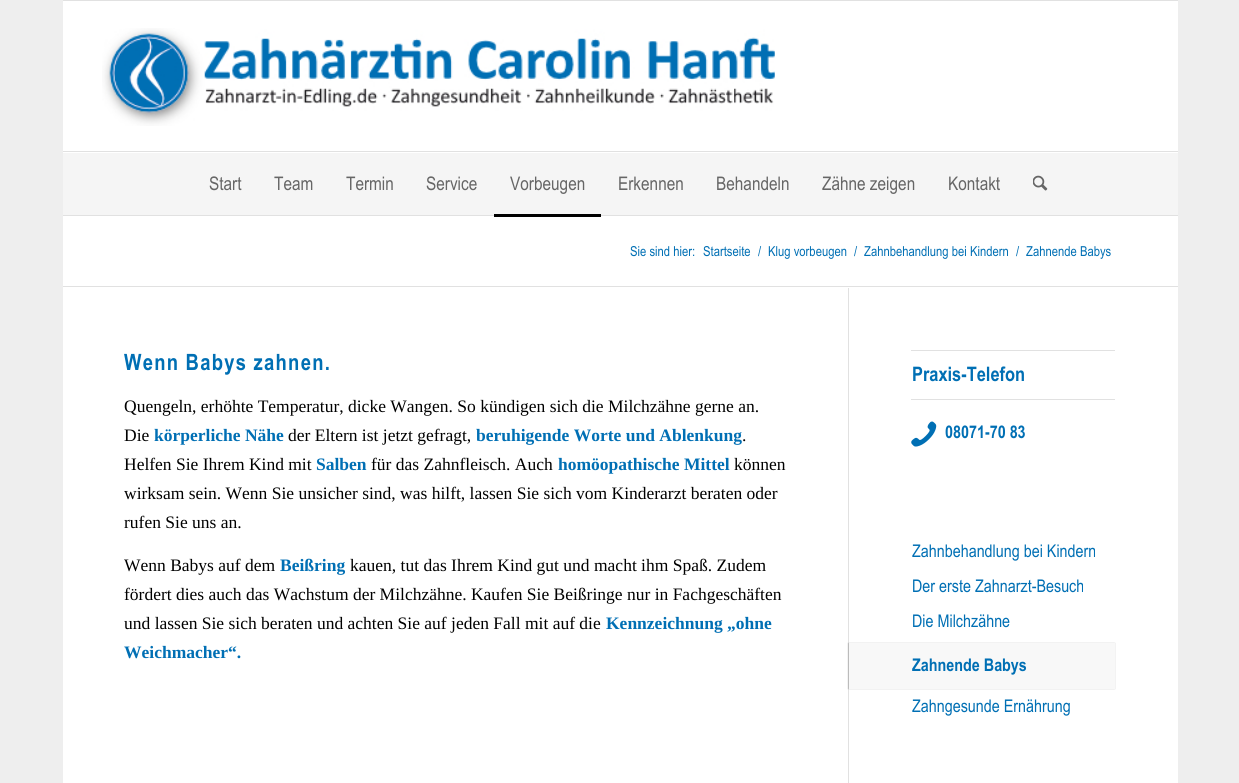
#include <cairo.h>
#include <math.h>
#include <stddef.h>

static cairo_t *c;
static void C(unsigned color){cairo_set_source_rgb(c, (color >> 16) / 255.0, (color >> 8 & 255) / 255.0, (color & 255) / 255.0);}
static void F(const char *family, double size, int italic, int bold){cairo_select_font_face(c, family, italic ? CAIRO_FONT_SLANT_ITALIC : CAIRO_FONT_SLANT_NORMAL,bold ? CAIRO_FONT_WEIGHT_BOLD : CAIRO_FONT_WEIGHT_NORMAL);cairo_set_font_size(c, size);}
static void T(double x, double y, const char *s){cairo_move_to(c, x, y);cairo_show_text(c, s);}
static void L(double x, double y, const char *s, double letter, double word){cairo_move_to(c, x, y);while (*s) {char ch[5] = {0};int n = 0;do ch[n++] = *s++; while ((*s & 0xC0) == 0x80);cairo_show_text(c, ch);cairo_rel_move_to(c, letter + word * (*ch == ' '), 0);}}
static void R(double x, double y, double w, double h){cairo_rectangle(c, x, y, w, h);cairo_fill(c);}
static void Q(double x, double y, double w, double h, double r){cairo_new_sub_path(c);cairo_arc(c, x + w - r, y + h - r, r, 0, M_PI / 2);cairo_arc(c, x + r, y + h - r, r, M_PI / 2, M_PI);cairo_arc(c, x + r, y + r, r, M_PI, 1.5 * M_PI);cairo_arc(c, x + w - r, y + r, r, 1.5 * M_PI, 2 * M_PI);cairo_close_path(c);}
static void S(double x, double y, double w, double h, double r, double blur, double alpha){cairo_push_group_with_content(c, CAIRO_CONTENT_ALPHA);cairo_set_operator(c, CAIRO_OPERATOR_SOURCE);for (int i = 15; i >= -15 && fmin(w, h) + blur * i / 3 > 0; i -= 2) {double e = blur * i / 6;cairo_set_source_rgba(c, 0, 0, 0, alpha * erfc((i - 1) / 8.5) / 2);Q(x - e, y - e, w + 2 * e, h + 2 * e, fmax(0, fmin(r + e + blur * .6, fmin(w, h) / 2 + e)));cairo_fill(c);}cairo_pattern_t *soft = cairo_pop_group(c);cairo_mask(c, soft);cairo_pattern_destroy(soft);}
static void I(const char *path, double x, double y, double w, double h){cairo_surface_t *image = cairo_image_surface_create_from_png(path);cairo_save(c);cairo_set_source_surface(c, image, x, y);cairo_rectangle(c, x, y, w, h);cairo_fill(c);cairo_restore(c);cairo_surface_destroy(image);}
int main(void) {
cairo_surface_t *surface = cairo_image_surface_create(CAIRO_FORMAT_RGB24, 1239, 783);
c = cairo_create(surface);
cairo_font_options_t *options = cairo_font_options_create();
cairo_font_options_set_hint_metrics(options, CAIRO_HINT_METRICS_OFF);
cairo_font_options_set_hint_style(options, CAIRO_HINT_STYLE_NONE);
cairo_set_font_options(c, options);
cairo_set_miter_limit(c, 4);
C(0xeeeeee);
cairo_paint(c);
C(0xe1e1e1);
R(63,0,1115,1);
R(63,215,1115,1);
C(0xffffff);
R(63,1,1115,152);
I("1.png",102,28,673,98);
C(0xe1e1e1);
R(63,151,1115,1);
C(0xf5f5f5);
R(63,153,1115,62);
F("Arial",18.75,0,0);
C(0x666666);
T(209,190,"Start");
T(274,190,"Team");
T(346,190,"Termin");
T(426,190,"Service");
T(510,190,"Vorbeugen");
C(0xffffff);
R(63,216,1115,567);
C(0x000000);
R(494,214,107,3);
C(0x666666);
T(618,190,"Erkennen");
T(716,190,"Behandeln");
T(822,190,"Zähne zeigen");
T(948,190,"Kontakt");
I("2.png",1033,175,15,16);
F("Arial",13.75,0,0);
C(0x006fb4);
T(630,256,"Sie sind hier:");
T(703,256,"Startseite");
T(758,256,"/");
T(768,256,"Klug vorbeugen");
T(854,256,"/");
T(864,256,"Zahnbehandlung bei Kindern");
T(1016,256,"/");
T(1026,256,"Zahnende Babys");
C(0xe1e1e1);
R(63,286,1115,1);
F("Arial",22.5,0,1);
C(0x006fb4);
L(124,370,"Wenn Babys zahnen.",1.25,0);
F("Liberation Serif",17.5,0,0);
C(0x000000);
T(124,412,"Quengeln, erhöhte Temperatur, dicke Wangen. So kündigen sich die Milchzähne gerne an.");
T(124,441,"Die");
F("Liberation Serif",17.5,0,1);
C(0x006fb4);
T(154,441,"körperliche Nähe");
F("Liberation Serif",17.5,0,0);
C(0x000000);
T(288,441,"der Eltern ist jetzt gefragt,");
F("Liberation Serif",17.5,0,1);
C(0x006fb4);
T(476,441,"beruhigende Worte und Ablenkung");
F("Liberation Serif",17.5,0,0);
C(0x000000);
T(742,441,".");
T(124,470,"Helfen Sie Ihrem Kind mit");
F("Liberation Serif",17.5,0,1);
C(0x006fb4);
T(316,470,"Salben");
F("Liberation Serif",17.5,0,0);
C(0x000000);
T(371,470,"für das Zahnfleisch. Auch");
F("Liberation Serif",17.5,0,1);
C(0x006fb4);
T(558,470,"homöopathische Mittel");
F("Liberation Serif",17.5,0,0);
C(0x000000);
T(734,470,"können");
T(124,499,"wirksam sein. Wenn Sie unsicher sind, was hilft, lassen Sie sich vom Kinderarzt beraten oder");
T(124,528,"rufen Sie uns an.");
T(124,571,"Wenn Babys auf dem");
F("Liberation Serif",17.5,0,1);
C(0x006fb4);
T(280,571,"Beißring");
F("Liberation Serif",17.5,0,0);
C(0x000000);
T(350,571,"kauen, tut das Ihrem Kind gut und macht ihm Spaß. Zudem");
T(124,600,"fördert dies auch das Wachstum der Milchzähne. Kaufen Sie Beißringe nur in Fachgeschäften");
T(124,629,"und lassen Sie sich beraten und achten Sie auf jeden Fall mit auf die");
F("Liberation Serif",17.5,0,1);
C(0x006fb4);
T(606,629,"Kennzeichnung „ohne");
T(124,658,"Weichmacher“.");
C(0xe1e1e1);
R(848,288,1,495);
R(911,350,204,1);
R(911,399,204,1);
F("Arial",20,0,1);
C(0x006fb4);
T(912,381,"Praxis-Telefon");
I("3.png",911,421,26,26);
F("Arial",17.5,0,1);
T(945,438,"08071-70 83");
F("Arial",17.5,0,0);
T(912,557,"Zahnbehandlung bei Kindern");
T(912,592,"Der erste Zahnarzt-Besuch");
T(912,627,"Die Milchzähne");
C(0x000000);
S(848,643,267,46,0,.5,.2);
C(0xf8f8f8);
R(849,643,266,46);
F("Arial",17.5,0,1);
C(0x006fb4);
T(912,671,"Zahnende Babys");
F("Arial",17.5,0,0);
T(912,712,"Zahngesunde Ernährung");
cairo_surface_write_to_png(surface, "o.png");
cairo_font_options_destroy(options);
cairo_destroy(c);
cairo_surface_destroy(surface);
return 0;
}
